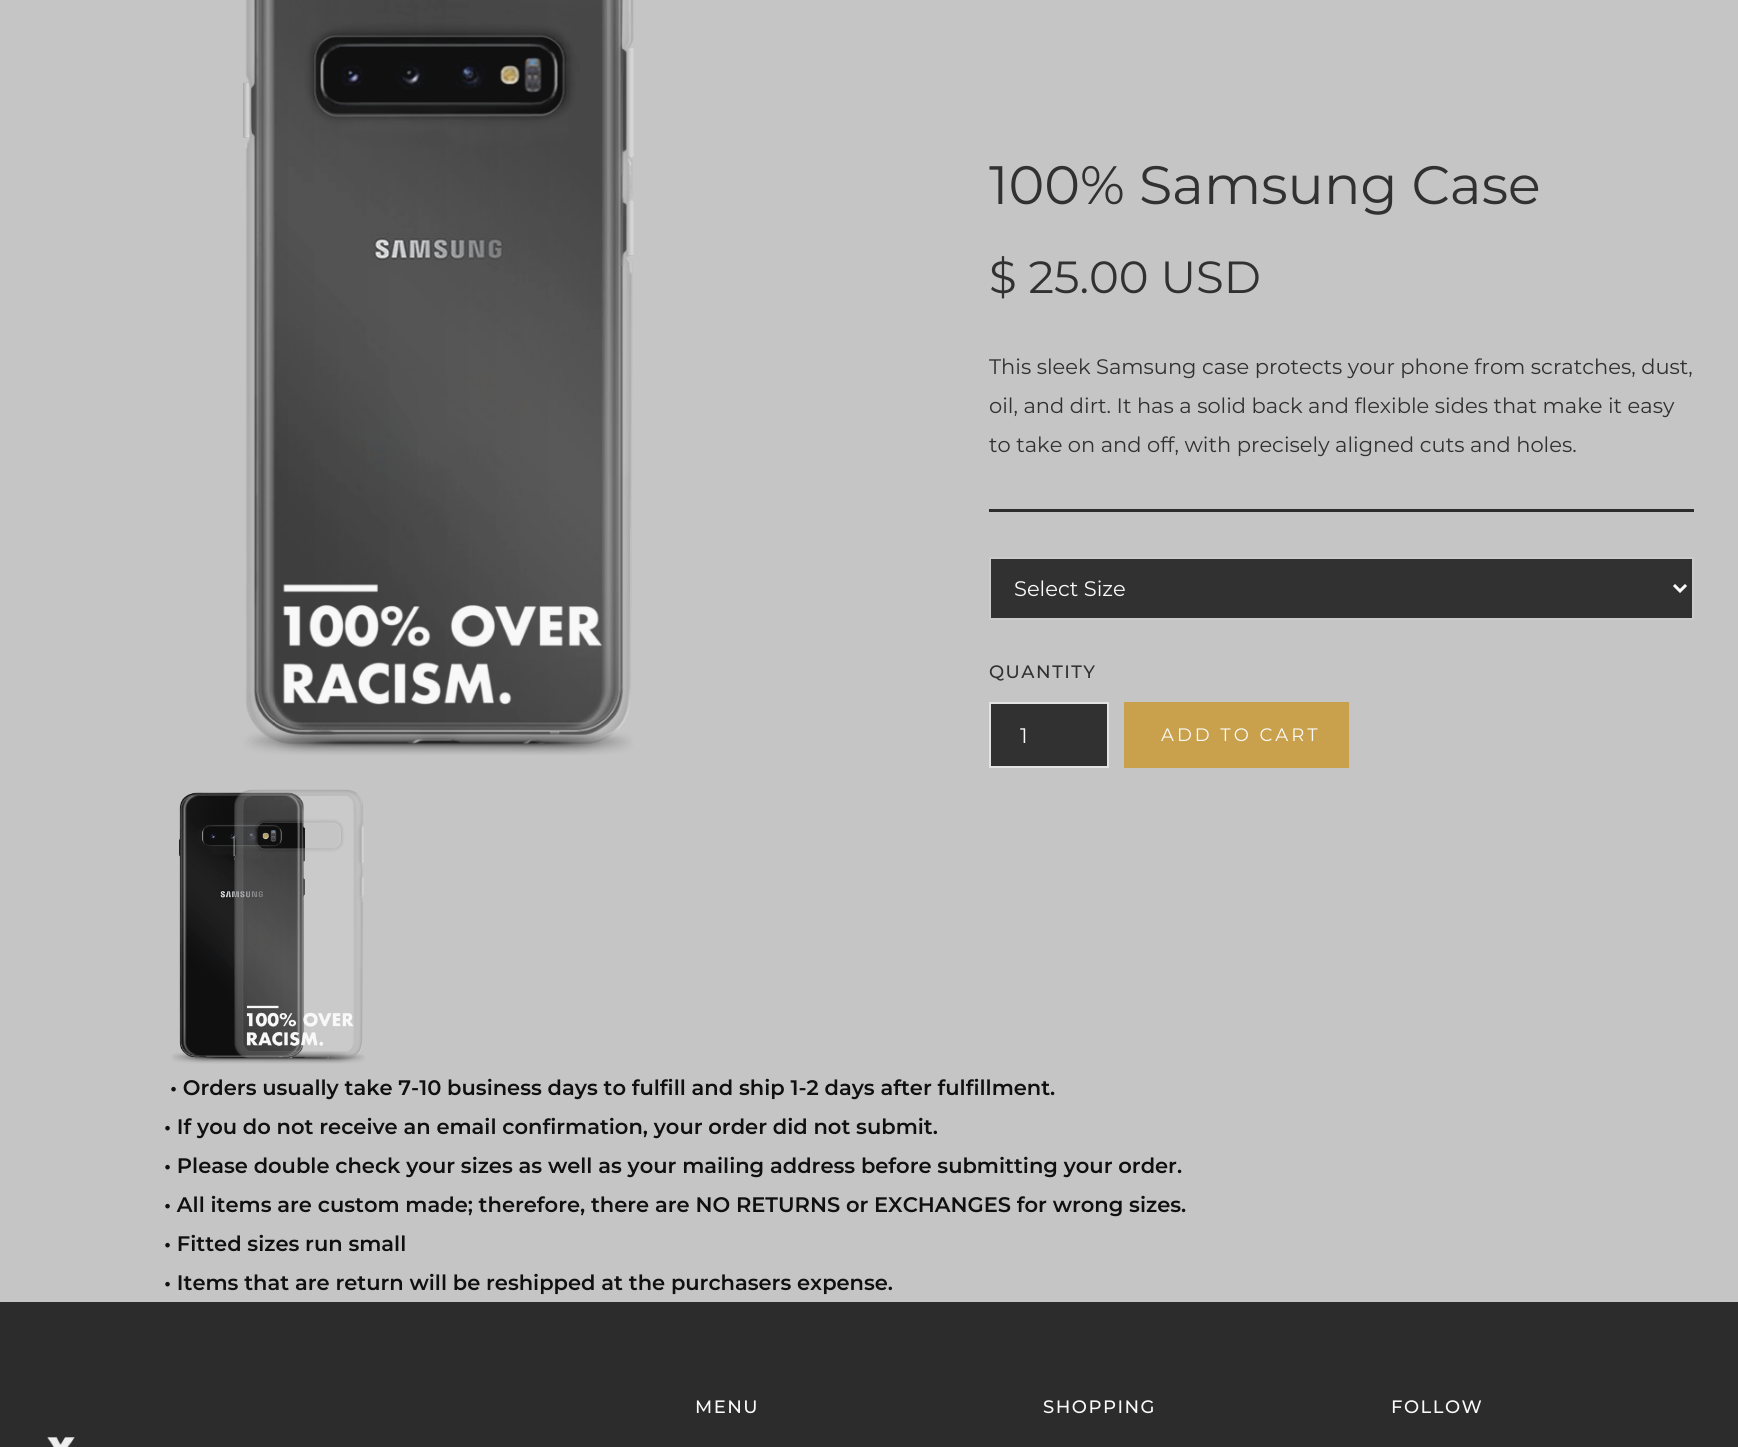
#include <cairo.h>
#include <math.h>
#include <stddef.h>

static cairo_t *c;
static void C(unsigned color){cairo_set_source_rgb(c, (color >> 16) / 255.0, (color >> 8 & 255) / 255.0, (color & 255) / 255.0);}
static void F(const char *family, double size, int italic, int bold){cairo_select_font_face(c, family, italic ? CAIRO_FONT_SLANT_ITALIC : CAIRO_FONT_SLANT_NORMAL,bold ? CAIRO_FONT_WEIGHT_BOLD : CAIRO_FONT_WEIGHT_NORMAL);cairo_set_font_size(c, size);}
static void T(double x, double y, const char *s){cairo_move_to(c, x, y);cairo_show_text(c, s);}
static void L(double x, double y, const char *s, double letter, double word){cairo_move_to(c, x, y);while (*s) {char ch[5] = {0};int n = 0;do ch[n++] = *s++; while ((*s & 0xC0) == 0x80);cairo_show_text(c, ch);cairo_rel_move_to(c, letter + word * (*ch == ' '), 0);}}
static void R(double x, double y, double w, double h){cairo_rectangle(c, x, y, w, h);cairo_fill(c);}
static void I(const char *path, double x, double y, double w, double h){cairo_surface_t *image = cairo_image_surface_create_from_png(path);cairo_save(c);cairo_set_source_surface(c, image, x, y);cairo_rectangle(c, x, y, w, h);cairo_fill(c);cairo_restore(c);cairo_surface_destroy(image);}
int main(void) {
cairo_surface_t *surface = cairo_image_surface_create(CAIRO_FORMAT_RGB24, 1738, 1447);
c = cairo_create(surface);
cairo_font_options_t *options = cairo_font_options_create();
cairo_font_options_set_hint_metrics(options, CAIRO_HINT_METRICS_OFF);
cairo_font_options_set_hint_style(options, CAIRO_HINT_STYLE_NONE);
cairo_set_font_options(c, options);
cairo_set_miter_limit(c, 4);
C(0xc5c5c5);
cairo_paint(c);
I("1.png",243,0,391,755);
I("2.png",172,789,193,275);
F("Montserrat",54,0,0);
C(0x313131);
T(989,204,"100% Samsung Case");
F("Montserrat",45,0,0);
T(989,293,"$ 25.00 USD");
F("Montserrat",21,0,0);
T(989,374,"This sleek Samsung case protects your phone from scratches, dust,");
T(989,413,"oil, and dirt. It has a solid back and flexible sides that make it easy");
T(989,452,"to take on and off, with precisely aligned cuts and holes.");
C(0x2d2d2d);
R(989,509,705,1);
C(0x2c2c2c);
R(989,510,705,2);
C(0x313131);
cairo_rectangle(c,990,558,703,61);
cairo_fill_preserve(c);
C(0xcbcbcb);
cairo_stroke(c);
cairo_new_path(c);
cairo_move_to(c,1674,585);
cairo_line_to(c,1680,591);
cairo_line_to(c,1686,585);
C(0xfafafa);
cairo_set_line_width(c,3);
cairo_stroke(c);
T(1014,596,"Select Size");
F("Montserrat Medium",18,0,0);
C(0x313131);
L(989,678,"QUANTITY",1.5,0);
cairo_rectangle(c,990,703,118,64);
cairo_fill_preserve(c);
C(0xe3e3e3);
cairo_set_line_width(c,2);
cairo_stroke(c);
F("Montserrat",21,0,0);
C(0xfafafa);
T(1020,743,"1");
C(0xc9a14c);
R(1124,702,225,66);
F("Montserrat",18,0,0);
C(0xfafafa);
L(1161,741,"ADD TO CART",3,0);
F("Montserrat SemiBold",21,0,0);
C(0x101010);
T(170,1095,"• Orders usually take 7-10 business days to fulfill and ship 1-2 days after fulfillment.");
T(164,1134,"• If you do not receive an email confirmation, your order did not submit.");
T(164,1173,"• Please double check your sizes as well as your mailing address before submitting your order.");
T(164,1212,"• All items are custom made; therefore, there are NO RETURNS or EXCHANGES for wrong sizes.");
T(164,1251,"• Fitted sizes run small");
T(164,1290,"• Items that are return will be reshipped at the purchasers expense.");
C(0x2c2c2c);
R(0,1302,1738,145);
F("Montserrat Medium",18,0,0);
C(0xfafafa);
L(695,1413,"MENU",1.5,0);
L(1043,1413,"SHOPPING",1.5,0);
L(1391,1413,"FOLLOW",1.5,0);
I("3.png",47,1437,28,10);
cairo_surface_write_to_png(surface, "o.png");
cairo_font_options_destroy(options);
cairo_destroy(c);
cairo_surface_destroy(surface);
return 0;
}
